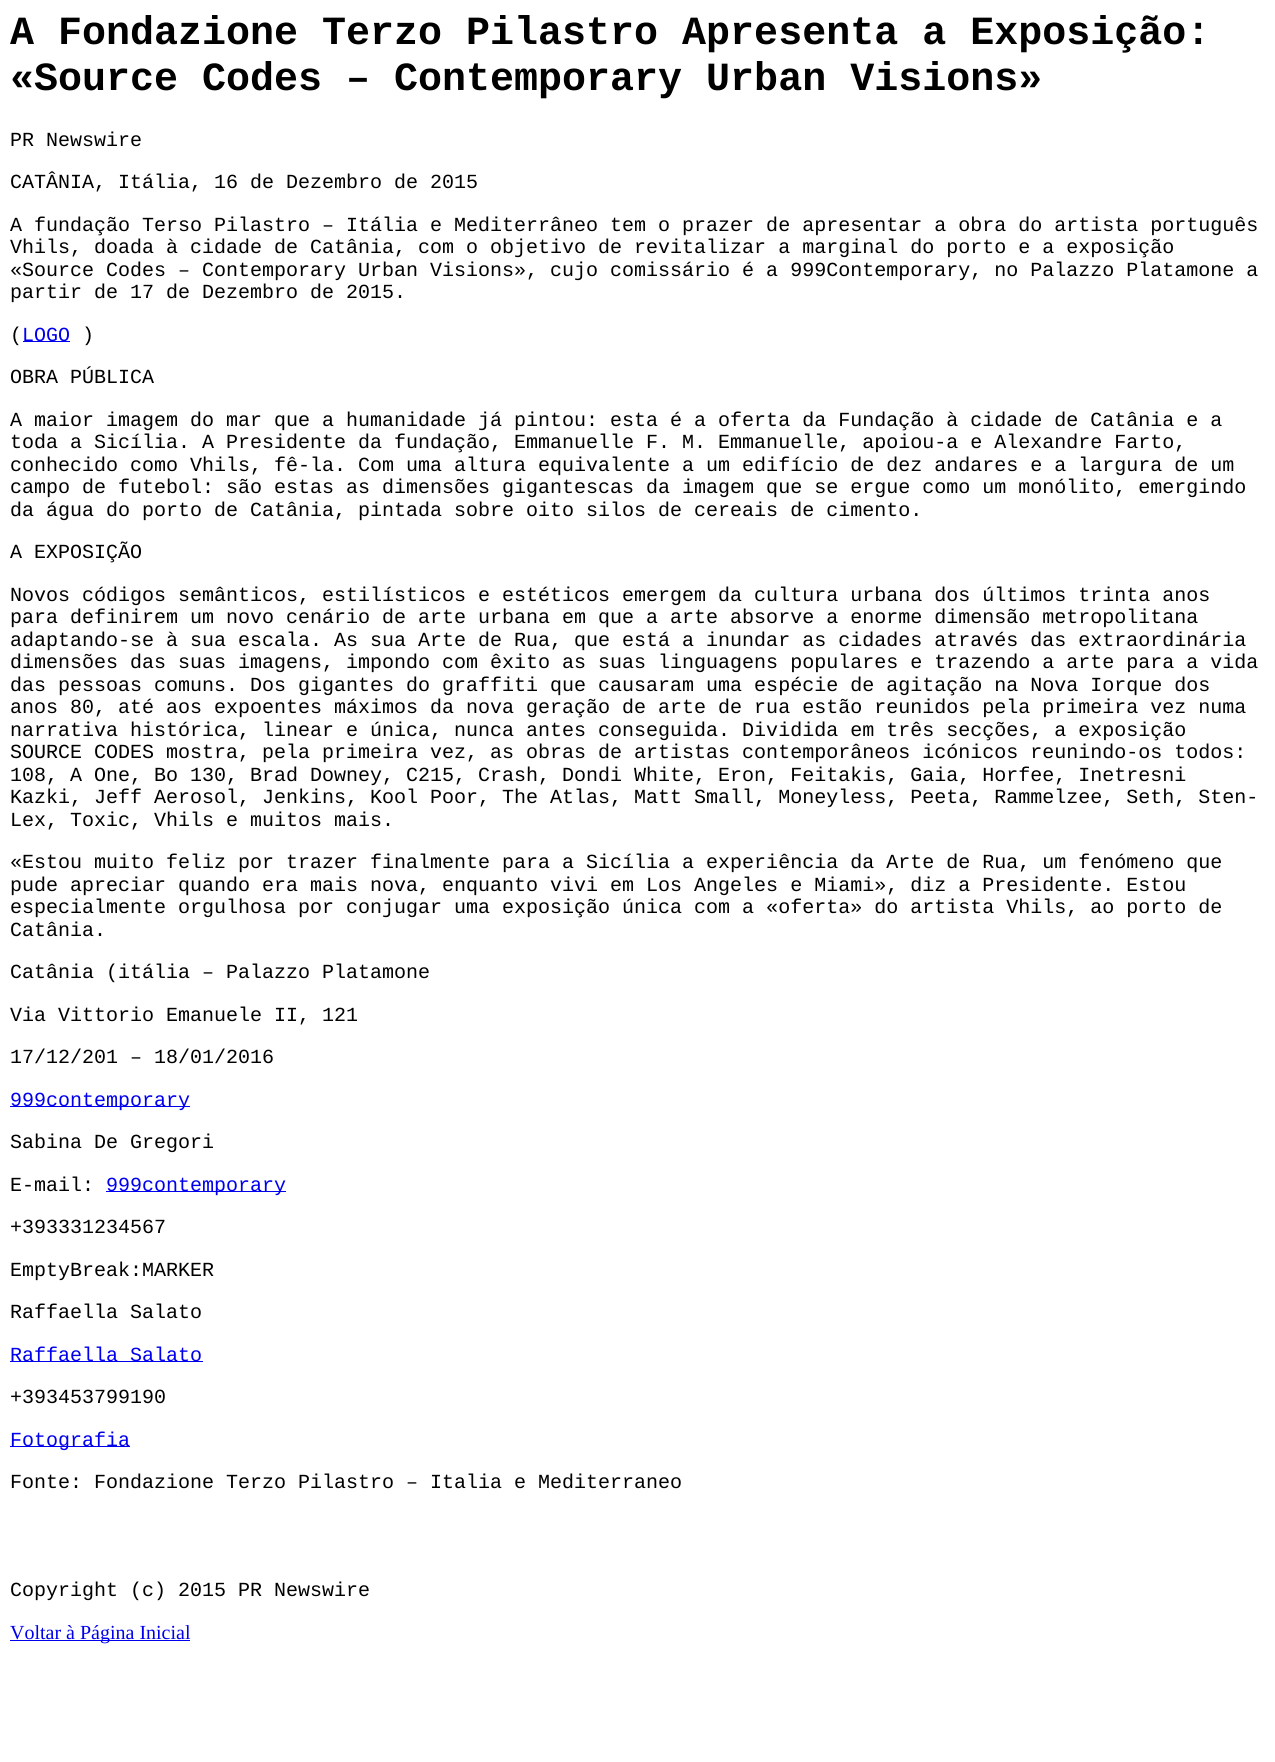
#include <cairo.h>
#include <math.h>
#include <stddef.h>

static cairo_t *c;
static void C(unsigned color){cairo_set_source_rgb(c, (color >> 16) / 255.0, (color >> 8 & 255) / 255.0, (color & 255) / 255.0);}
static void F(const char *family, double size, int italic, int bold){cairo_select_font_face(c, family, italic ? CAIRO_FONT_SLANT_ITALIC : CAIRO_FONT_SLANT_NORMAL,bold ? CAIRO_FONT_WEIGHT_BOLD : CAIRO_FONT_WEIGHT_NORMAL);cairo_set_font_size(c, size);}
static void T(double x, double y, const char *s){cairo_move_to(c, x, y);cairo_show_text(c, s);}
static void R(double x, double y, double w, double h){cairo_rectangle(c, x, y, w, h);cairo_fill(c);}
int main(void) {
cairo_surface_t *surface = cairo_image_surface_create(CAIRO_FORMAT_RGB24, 1275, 1762);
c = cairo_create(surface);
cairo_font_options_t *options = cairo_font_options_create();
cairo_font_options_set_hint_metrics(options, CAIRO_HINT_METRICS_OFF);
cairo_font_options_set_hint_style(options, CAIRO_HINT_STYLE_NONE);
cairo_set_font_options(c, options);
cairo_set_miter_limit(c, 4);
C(0xffffff);
cairo_paint(c);
F("Liberation Mono",40,0,1);
C(0x000000);
T(10,44,"A Fondazione Terzo Pilastro Apresenta a Exposição:");
T(10,90,"«Source Codes – Contemporary Urban Visions»");
F("Liberation Mono",20,0,0);
T(10,146,"PR Newswire");
T(10,188,"CATÂNIA, Itália, 16 de Dezembro de 2015");
T(10,231,"A fundação Terso Pilastro – Itália e Mediterrâneo tem o prazer de apresentar a obra do artista português");
T(10,253,"Vhils, doada à cidade de Catânia, com o objetivo de revitalizar a marginal do porto e a exposição");
T(10,276,"«Source Codes – Contemporary Urban Visions», cujo comissário é a 999Contemporary, no Palazzo Platamone a");
T(10,298,"partir de 17 de Dezembro de 2015.");
T(10,341,"(");
C(0x0000ee);
R(23,341,47,1);
T(22,341,"LOGO");
C(0x000000);
T(82,341,")");
T(10,383,"OBRA PÚBLICA");
T(10,426,"A maior imagem do mar que a humanidade já pintou: esta é a oferta da Fundação à cidade de Catânia e a");
T(10,448,"toda a Sicília. A Presidente da fundação, Emmanuelle F. M. Emmanuelle, apoiou-a e Alexandre Farto,");
T(10,471,"conhecido como Vhils, fê-la. Com uma altura equivalente a um edifício de dez andares e a largura de um");
T(10,493,"campo de futebol: são estas as dimensões gigantescas da imagem que se ergue como um monólito, emergindo");
T(10,516,"da água do porto de Catânia, pintada sobre oito silos de cereais de cimento.");
T(10,558,"A EXPOSIÇÃO");
T(10,601,"Novos códigos semânticos, estilísticos e estéticos emergem da cultura urbana dos últimos trinta anos");
T(10,623,"para definirem um novo cenário de arte urbana em que a arte absorve a enorme dimensão metropolitana");
T(10,646,"adaptando-se à sua escala. As sua Arte de Rua, que está a inundar as cidades através das extraordinária");
T(10,668,"dimensões das suas imagens, impondo com êxito as suas linguagens populares e trazendo a arte para a vida");
T(10,691,"das pessoas comuns. Dos gigantes do graffiti que causaram uma espécie de agitação na Nova Iorque dos");
T(10,713,"anos 80, até aos expoentes máximos da nova geração de arte de rua estão reunidos pela primeira vez numa");
T(10,736,"narrativa histórica, linear e única, nunca antes conseguida. Dividida em três secções, a exposição");
T(10,758,"SOURCE CODES mostra, pela primeira vez, as obras de artistas contemporâneos icónicos reunindo-os todos:");
T(10,781,"108, A One, Bo 130, Brad Downey, C215, Crash, Dondi White, Eron, Feitakis, Gaia, Horfee, Inetresni");
T(10,803,"Kazki, Jeff Aerosol, Jenkins, Kool Poor, The Atlas, Matt Small, Moneyless, Peeta, Rammelzee, Seth, Sten-");
T(10,826,"Lex, Toxic, Vhils e muitos mais.");
T(10,868,"«Estou muito feliz por trazer finalmente para a Sicília a experiência da Arte de Rua, um fenómeno que");
T(10,891,"pude apreciar quando era mais nova, enquanto vivi em Los Angeles e Miami», diz a Presidente. Estou");
T(10,913,"especialmente orgulhosa por conjugar uma exposição única com a «oferta» do artista Vhils, ao porto de");
T(10,936,"Catânia.");
T(10,978,"Catânia (itália – Palazzo Platamone");
T(10,1021,"Via Vittorio Emanuele II, 121");
T(10,1063,"17/12/201 – 18/01/2016");
C(0x0000ee);
R(10,1106,180,1);
T(10,1106,"999contemporary");
C(0x000000);
T(10,1148,"Sabina De Gregori");
T(10,1191,"E-mail:");
C(0x0000ee);
R(106,1191,180,1);
T(106,1191,"999contemporary");
C(0x000000);
T(10,1233,"+393331234567");
T(10,1276,"EmptyBreak:MARKER");
T(10,1318,"Raffaella Salato");
C(0x0000ee);
R(10,1361,193,1);
T(10,1361,"Raffaella Salato");
C(0x000000);
T(10,1403,"+393453799190");
C(0x0000ee);
R(10,1446,120,1);
T(10,1446,"Fotografia");
C(0x000000);
T(10,1488,"Fonte: Fondazione Terzo Pilastro – Italia e Mediterraneo");
T(10,1596,"Copyright (c) 2015 PR Newswire");
C(0x0000ee);
R(10,1640,180,1);
F("Liberation Serif",20,0,0);
T(10,1639,"Voltar à Página Inicial");
cairo_surface_write_to_png(surface, "o.png");
cairo_font_options_destroy(options);
cairo_destroy(c);
cairo_surface_destroy(surface);
return 0;
}
